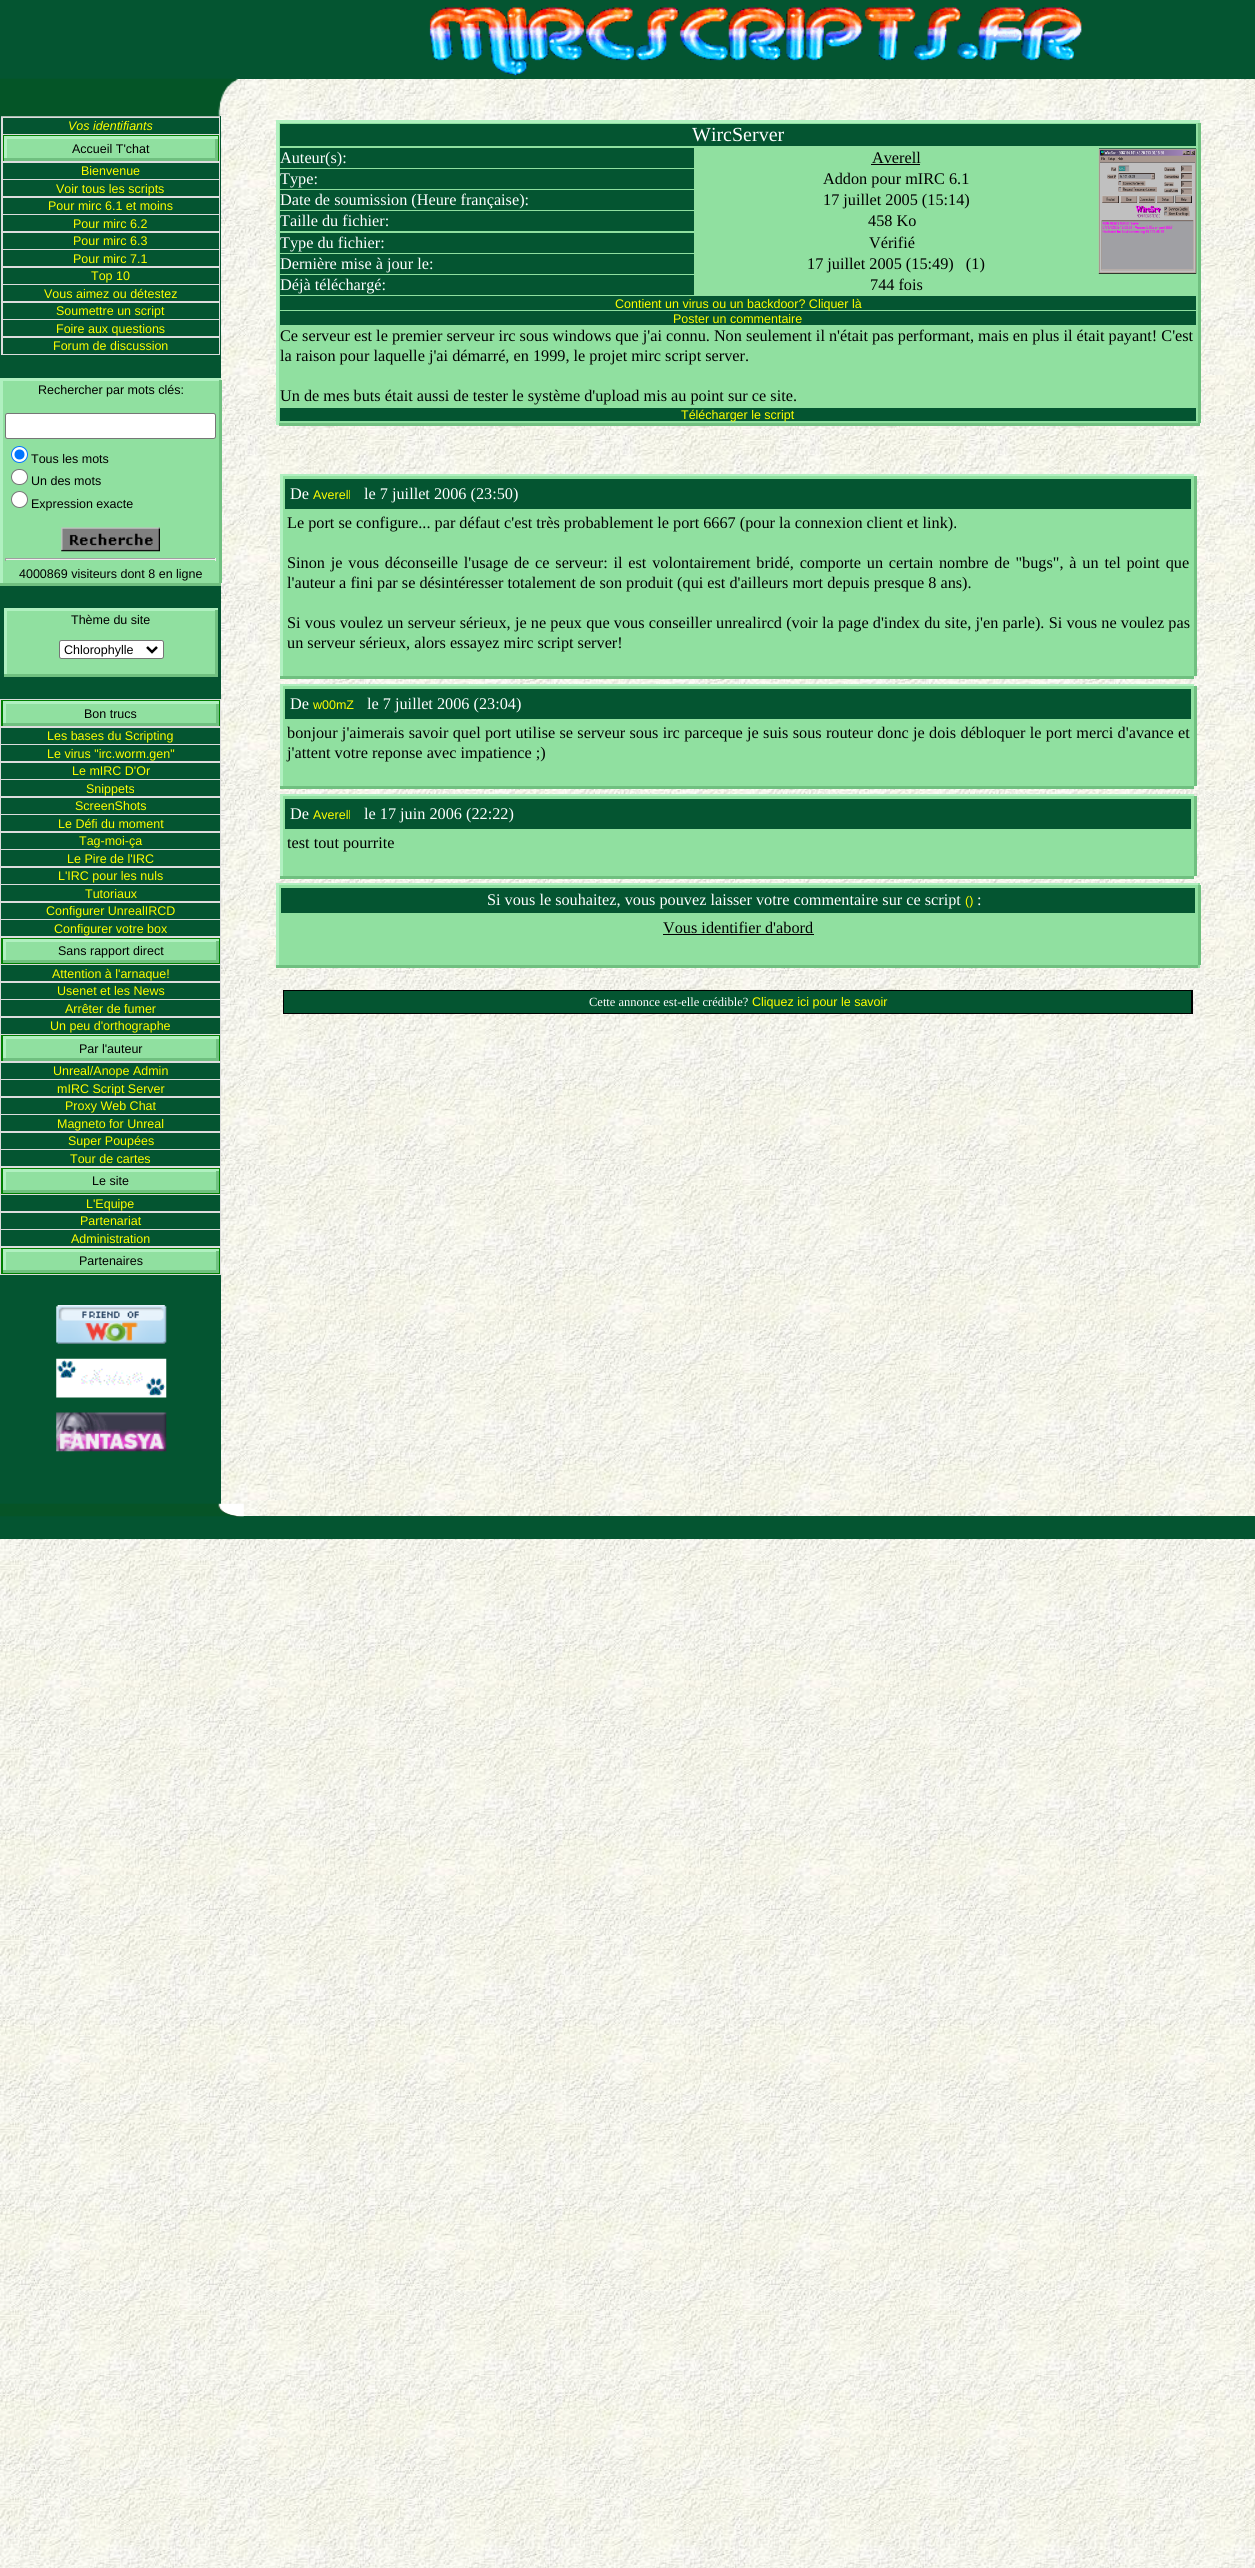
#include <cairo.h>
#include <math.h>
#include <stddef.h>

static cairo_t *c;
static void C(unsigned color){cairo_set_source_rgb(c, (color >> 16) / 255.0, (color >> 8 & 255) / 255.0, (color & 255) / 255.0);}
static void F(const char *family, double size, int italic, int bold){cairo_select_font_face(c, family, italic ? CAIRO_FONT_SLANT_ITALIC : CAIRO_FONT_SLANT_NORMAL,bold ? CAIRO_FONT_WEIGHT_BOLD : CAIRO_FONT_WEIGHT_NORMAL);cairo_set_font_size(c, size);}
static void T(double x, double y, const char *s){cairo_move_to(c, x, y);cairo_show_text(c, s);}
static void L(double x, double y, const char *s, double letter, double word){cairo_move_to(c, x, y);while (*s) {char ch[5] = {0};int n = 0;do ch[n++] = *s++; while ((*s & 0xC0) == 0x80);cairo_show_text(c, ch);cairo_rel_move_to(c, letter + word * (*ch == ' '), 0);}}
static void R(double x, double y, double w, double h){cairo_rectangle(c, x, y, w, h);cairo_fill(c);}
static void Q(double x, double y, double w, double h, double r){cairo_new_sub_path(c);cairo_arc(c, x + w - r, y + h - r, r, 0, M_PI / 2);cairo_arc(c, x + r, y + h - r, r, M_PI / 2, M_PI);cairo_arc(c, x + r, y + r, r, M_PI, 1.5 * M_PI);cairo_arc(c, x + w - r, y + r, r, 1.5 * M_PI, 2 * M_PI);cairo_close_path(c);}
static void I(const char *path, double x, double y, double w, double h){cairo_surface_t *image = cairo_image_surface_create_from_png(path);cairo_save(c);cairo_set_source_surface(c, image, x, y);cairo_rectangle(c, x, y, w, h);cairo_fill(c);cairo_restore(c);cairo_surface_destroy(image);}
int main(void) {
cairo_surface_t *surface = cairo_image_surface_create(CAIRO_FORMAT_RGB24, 1255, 2568);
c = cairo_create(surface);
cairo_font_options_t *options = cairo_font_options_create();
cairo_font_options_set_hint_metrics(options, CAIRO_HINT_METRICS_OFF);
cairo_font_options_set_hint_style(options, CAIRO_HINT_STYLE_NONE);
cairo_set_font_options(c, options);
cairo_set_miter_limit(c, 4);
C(0xffffff);
cairo_paint(c);
I("1.png",0,79,1255,2489);
C(0x045531);
R(0,0,1255,79);
I("2.png",429,7,653,69);
R(0,116,221,1388);
C(0xdddddd);
R(1,116,219,239);
I("3.png",0,78,238,39);
C(0x045531);
R(3,118,216,16);
F("Liberation Sans",12.5,1,0);
C(0xffff00);
T(68,130,"Vos identifiants");
C(0x008000);
R(3,135,216,26);
C(0x90e0a0);
R(7,139,208,19);
C(0xb0f0c0);
R(4,136,214,3);
R(4,139,3,19);
F("Liberation Sans",12.5,0,0);
C(0x000000);
T(72,153,"Accueil T'chat");
C(0x70c080);
R(215,139,3,19);
R(4,158,214,3);
C(0x045531);
R(3,163,216,16);
C(0xffff00);
T(81,175,"Bienvenue");
C(0x045531);
R(3,180,216,16);
C(0xffff00);
T(56,193,"Voir tous les scripts");
C(0x045531);
R(3,198,216,16);
C(0xffff00);
T(48,210,"Pour mirc 6.1 et moins");
C(0x045531);
R(3,215,216,16);
C(0xffff00);
T(73,228,"Pour mirc 6.2");
C(0x045531);
R(3,233,216,16);
C(0xffff00);
T(73,245,"Pour mirc 6.3");
C(0x045531);
R(3,250,216,16);
C(0xffff00);
T(73,263,"Pour mirc 7.1");
C(0x045531);
R(3,268,216,16);
C(0xffff00);
T(91,280,"Top 10");
C(0x045531);
R(3,285,216,16);
C(0xffff00);
T(44,298,"Vous aimez ou détestez");
C(0x045531);
R(3,303,216,16);
C(0xffff00);
T(56,315,"Soumettre un script");
C(0x045531);
R(3,320,216,16);
C(0xffff00);
T(56,333,"Foire aux questions");
C(0x045531);
R(3,338,216,16);
C(0xffff00);
T(53,350,"Forum de discussion");
C(0x90e0a0);
R(3,381,216,202);
C(0xb0f0c0);
R(0,378,221,3);
R(0,380,3,203);
C(0x000000);
T(38,394,"Rechercher par mots clés:");
C(0xffffff);
Q(5.5,413.5,210,25,2);
cairo_fill_preserve(c);
C(0x767676);
cairo_set_line_width(c,1);
cairo_stroke(c);
C(0xffffff);
cairo_arc(c,19.5,454.5,8,0,2 * M_PI);
cairo_fill_preserve(c);
C(0x0075ff);
cairo_stroke(c);
cairo_arc(c,19.5,454.5,5,0,2 * M_PI);
cairo_fill(c);
C(0x000000);
T(31,463,"Tous les mots");
C(0xffffff);
Q(11.5,469.5,16,15,7.5);
cairo_fill_preserve(c);
C(0x767676);
cairo_stroke(c);
C(0x000000);
T(31,485,"Un des mots");
C(0xffffff);
cairo_new_path(c);
cairo_arc(c,19.5,499.5,8,0,2 * M_PI);
cairo_fill_preserve(c);
C(0x767676);
cairo_stroke(c);
C(0x000000);
T(31,508,"Expression exacte");
I("4.png",61,527,99,25);
C(0x9f9f9f);
R(5,558,211,1);
C(0xeeeeee);
R(215,558,1,3);
R(5,559,211,1);
C(0x9f9f9f);
R(5,558,1,3);
C(0x000000);
T(19,578,"4000869 visiteurs dont 8 en ligne");
C(0x70c080);
R(219,380,3,203);
R(0,583,221,3);
C(0x90e0a0);
R(7,611,208,63);
C(0xb0f0c0);
R(4,608,214,3);
R(4,610,3,64);
C(0x000000);
T(71,624,"Thème du site");
C(0xffffff);
Q(59.5,640.5,104,18,2);
cairo_fill_preserve(c);
C(0x767676);
cairo_stroke(c);
cairo_new_path(c);
cairo_move_to(c,147,647);
cairo_line_to(c,152,652);
cairo_line_to(c,157,647);
C(0x000000);
cairo_set_line_width(c,2.5);
cairo_stroke(c);
T(64,654,"Chlorophylle");
C(0x70c080);
R(215,610,3,64);
R(4,674,214,3);
C(0xdddddd);
R(0,699,221,576);
C(0x008000);
R(1,700,219,26);
C(0x90e0a0);
R(6,704,210,19);
C(0xb0f0c0);
R(3,701,216,3);
R(3,704,3,19);
C(0x000000);
T(84,718,"Bon trucs");
C(0x70c080);
R(216,704,3,19);
R(3,723,216,3);
C(0x045531);
R(1,728,219,16);
C(0xffff00);
T(47,740,"Les bases du Scripting");
C(0x045531);
R(1,745,219,16);
C(0xffff00);
T(47,758,"Le virus \"irc.worm.gen\"");
C(0x045531);
R(1,763,219,16);
C(0xffff00);
T(72,775,"Le mIRC D'Or");
C(0x045531);
R(1,780,219,16);
C(0xffff00);
T(86,793,"Snippets");
C(0x045531);
R(1,798,219,16);
C(0xffff00);
T(75,810,"ScreenShots");
C(0x045531);
R(1,815,219,16);
C(0xffff00);
T(58,828,"Le Défi du moment");
C(0x045531);
R(1,833,219,16);
C(0xffff00);
T(79,845,"Tag-moi-ça");
C(0x045531);
R(1,850,219,16);
C(0xffff00);
T(67,863,"Le Pire de l'IRC");
C(0x045531);
R(1,868,219,16);
C(0xffff00);
T(58,880,"L'IRC pour les nuls");
C(0x045531);
R(1,885,219,16);
C(0xffff00);
T(85,898,"Tutoriaux");
C(0x045531);
R(1,903,219,16);
C(0xffff00);
T(46,915,"Configurer UnrealIRCD");
C(0x045531);
R(1,920,219,16);
C(0xffff00);
T(54,933,"Configurer votre box");
C(0x008000);
R(1,938,219,26);
C(0x90e0a0);
R(6,942,210,18);
C(0xb0f0c0);
R(3,939,216,3);
R(3,941,3,19);
C(0x000000);
T(58,955,"Sans rapport direct");
C(0x70c080);
R(216,941,3,19);
R(3,960,216,3);
C(0x045531);
R(1,965,219,16);
C(0xffff00);
T(52,978,"Attention à l'arnaque!");
C(0x045531);
R(1,983,219,16);
C(0xffff00);
T(57,995,"Usenet et les News");
C(0x045531);
R(1,1000,219,16);
C(0xffff00);
T(65,1013,"Arrêter de fumer");
C(0x045531);
R(1,1018,219,16);
C(0xffff00);
T(50,1030,"Un peu d'orthographe");
C(0x008000);
R(1,1035,219,26);
C(0x90e0a0);
R(6,1039,210,19);
C(0xb0f0c0);
R(3,1036,216,3);
R(3,1039,3,19);
C(0x000000);
T(79,1053,"Par l'auteur");
C(0x70c080);
R(216,1039,3,19);
R(3,1058,216,3);
C(0x045531);
R(1,1063,219,16);
C(0xffff00);
T(53,1075,"Unreal/Anope Admin");
C(0x045531);
R(1,1080,219,16);
C(0xffff00);
T(57,1093,"mIRC Script Server");
C(0x045531);
R(1,1098,219,16);
C(0xffff00);
T(65,1110,"Proxy Web Chat");
C(0x045531);
R(1,1115,219,16);
C(0xffff00);
T(57,1128,"Magneto for Unreal");
C(0x045531);
R(1,1133,219,16);
C(0xffff00);
T(68,1145,"Super Poupées");
C(0x045531);
R(1,1150,219,16);
C(0xffff00);
T(70,1163,"Tour de cartes");
C(0x008000);
R(1,1168,219,26);
C(0x90e0a0);
R(6,1172,210,18);
C(0xb0f0c0);
R(3,1169,216,3);
R(3,1171,3,19);
C(0x000000);
T(92,1185,"Le site");
C(0x70c080);
R(216,1171,3,19);
R(3,1190,216,3);
C(0x045531);
R(1,1195,219,16);
C(0xffff00);
T(86,1208,"L'Equipe");
C(0x045531);
R(1,1213,219,16);
C(0xffff00);
T(80,1225,"Partenariat");
C(0x045531);
R(1,1230,219,16);
C(0xffff00);
T(71,1243,"Administration");
C(0x008000);
R(1,1248,219,26);
C(0x90e0a0);
R(6,1252,210,18);
C(0xb0f0c0);
R(3,1249,216,3);
R(3,1251,3,19);
C(0x000000);
T(79,1265,"Partenaires");
C(0x70c080);
R(216,1251,3,19);
R(3,1270,216,3);
I("5.png",56,1305,111,39);
I("6.png",56,1358,111,40);
I("7.png",56,1412,111,40);
C(0x90e0a0);
R(279,123,919,300);
C(0xb0f0c0);
R(276,120,924,3);
R(276,123,3,302);
C(0x045531);
R(280,124,916,22);
F("Liberation Serif",20,0,0);
C(0xffffff);
T(692,141,"WircServer");
C(0x045531);
R(280,148,414,20);
F("Liberation Serif",16.25,0,0);
C(0xffffff);
T(280,163,"Auteur(s):");
C(0x000000);
T(872,163,"Averell");
R(871,164,49,1);
C(0x045531);
R(1099,148,97,126);
I("8.png",1098,148,99,126);
R(280,169,414,20);
C(0xffffff);
T(280,184,"Type:");
C(0x000000);
T(823,184,"Addon pour mIRC 6.1");
C(0x045531);
R(280,190,414,20);
C(0xffffff);
T(280,205,"Date de soumission (Heure française):");
C(0x000000);
T(823,205,"17 juillet 2005 (15:14)");
C(0x045531);
R(280,211,414,20);
C(0xffffff);
T(280,226,"Taille du fichier:");
C(0x000000);
T(868,226,"458 Ko");
C(0x045531);
R(280,233,414,20);
C(0xffffff);
T(280,248,"Type du fichier:");
C(0x000000);
T(869,248,"Vérifié");
C(0x045531);
R(280,254,414,20);
C(0xffffff);
T(280,269,"Dernière mise à jour le:");
C(0x000000);
T(807,269,"17 juillet 2005 (15:49)   (1)");
C(0x045531);
R(280,275,414,20);
C(0xffffff);
T(280,290,"Déjà téléchargé:");
C(0x000000);
T(870,290,"744 fois");
C(0x045531);
R(280,296,916,14);
F("Liberation Sans",12.5,0,0);
C(0xffff00);
T(615,308,"Contient un virus ou un backdoor? Cliquer là");
C(0x045531);
R(280,311,916,14);
C(0xffff00);
T(673,323,"Poster un commentaire");
F("Liberation Serif",16.25,0,0);
C(0x000000);
T(280,341,"Ce serveur est le premier serveur irc sous windows que j'ai connu. Non seulement il n'était pas performant, mais en plus il était payant! C'est");
T(280,361,"la raison pour laquelle j'ai démarré, en 1999, le projet mirc script server.");
T(280,401,"Un de mes buts était aussi de tester le système d'upload mis au point sur ce site.");
C(0x045531);
R(280,408,916,13);
F("Liberation Sans",12.5,0,0);
C(0xffff00);
T(681,419,"Télécharger le script");
C(0x70c080);
R(1198,123,3,300);
R(279,423,921,3);
C(0xb0f0c0);
R(280,474,914,2);
R(280,476,3,200);
C(0x90e0a0);
R(283,476,911,200);
C(0x045531);
R(285,479,906,30);
F("Liberation Serif",16.25,0,0);
C(0xffffff);
T(290,499,"De");
F("Liberation Sans",12.5,0,0);
C(0xffff00);
T(313,499,"Averell");
F("Liberation Serif",16.25,0,0);
C(0xffffff);
T(364,499,"le 7 juillet 2006 (23:50)");
C(0x000000);
T(287,528,"Le port se configure... par défaut c'est très probablement le port 6667 (pour la connexion client et link).");
L(287,568,"Sinon je vous déconseille l'usage de ce serveur: il est volontairement bridé, comporte un certain nombre de \"bugs\", à un tel point que",0,1.75);
T(287,588,"l'auteur a fini par se désintéresser totalement de son produit (qui est d'ailleurs mort depuis presque 8 ans).");
L(287,628,"Si vous voulez un serveur sérieux, je ne peux que vous conseiller unrealircd (voir la page d'index du site, j'en parle). Si vous ne voulez pas",0,.15);
T(287,648,"un serveur sérieux, alors essayez mirc script server!");
C(0x70c080);
R(1194,476,3,200);
R(280,676,914,3);
C(0xb0f0c0);
R(280,684,914,2);
R(280,686,3,100);
C(0x90e0a0);
R(283,686,911,100);
C(0x045531);
R(285,689,906,30);
C(0xffffff);
T(290,709,"De");
F("Liberation Sans",12.5,0,0);
C(0xffff00);
T(313,709,"w00mZ");
F("Liberation Serif",16.25,0,0);
C(0xffffff);
T(367,709,"le 7 juillet 2006 (23:04)");
C(0x000000);
L(287,738,"bonjour j'aimerais savoir quel port utilise se serveur sous irc parceque je suis sous routeur donc je dois débloquer le port merci d'avance et",0,.25);
T(287,758,"j'attent votre reponse avec impatience ;)");
C(0x70c080);
R(1194,686,3,100);
R(280,786,914,3);
C(0xb0f0c0);
R(280,794,914,2);
R(280,796,3,80);
C(0x90e0a0);
R(283,796,911,80);
C(0x045531);
R(285,799,906,30);
C(0xffffff);
T(290,819,"De");
F("Liberation Sans",12.5,0,0);
C(0xffff00);
T(313,819,"Averell");
F("Liberation Serif",16.25,0,0);
C(0xffffff);
T(364,819,"le 17 juin 2006 (22:22)");
C(0x000000);
T(287,848,"test tout pourrite");
C(0x70c080);
R(1194,796,3,80);
R(280,876,914,3);
C(0x90e0a0);
R(1198,883,2,85);
C(0xb0f0c0);
R(276,883,922,2);
R(276,885,3,80);
C(0x90e0a0);
R(279,885,919,80);
C(0x045531);
R(281,888,914,25);
C(0xffffff);
T(487,905,"Si vous le souhaitez, vous pouvez laisser votre commentaire sur ce script");
F("Liberation Sans",12.5,0,0);
C(0xffff00);
T(965,905,"()");
F("Liberation Serif",16.25,0,0);
C(0xffffff);
T(977,905,":");
C(0x000000);
T(663,933,"Vous identifier d'abord");
R(663,934,151,1);
C(0x70c080);
R(1198,885,3,80);
R(276,965,922,3);
C(0x000000);
R(283,990,910,24);
C(0x045531);
R(284,991,907,22);
F("Liberation Serif",12.5,0,0);
C(0xffffff);
T(589,1006,"Cette annonce est-elle crédible?");
F("Liberation Sans",12.5,0,0);
C(0xffff00);
T(752,1006,"Cliquez ici pour le savoir");
C(0x045531);
R(0,1516,1255,23);
I("9.png",0,1503,244,14);
cairo_surface_write_to_png(surface, "o.png");
cairo_font_options_destroy(options);
cairo_destroy(c);
cairo_surface_destroy(surface);
return 0;
}
